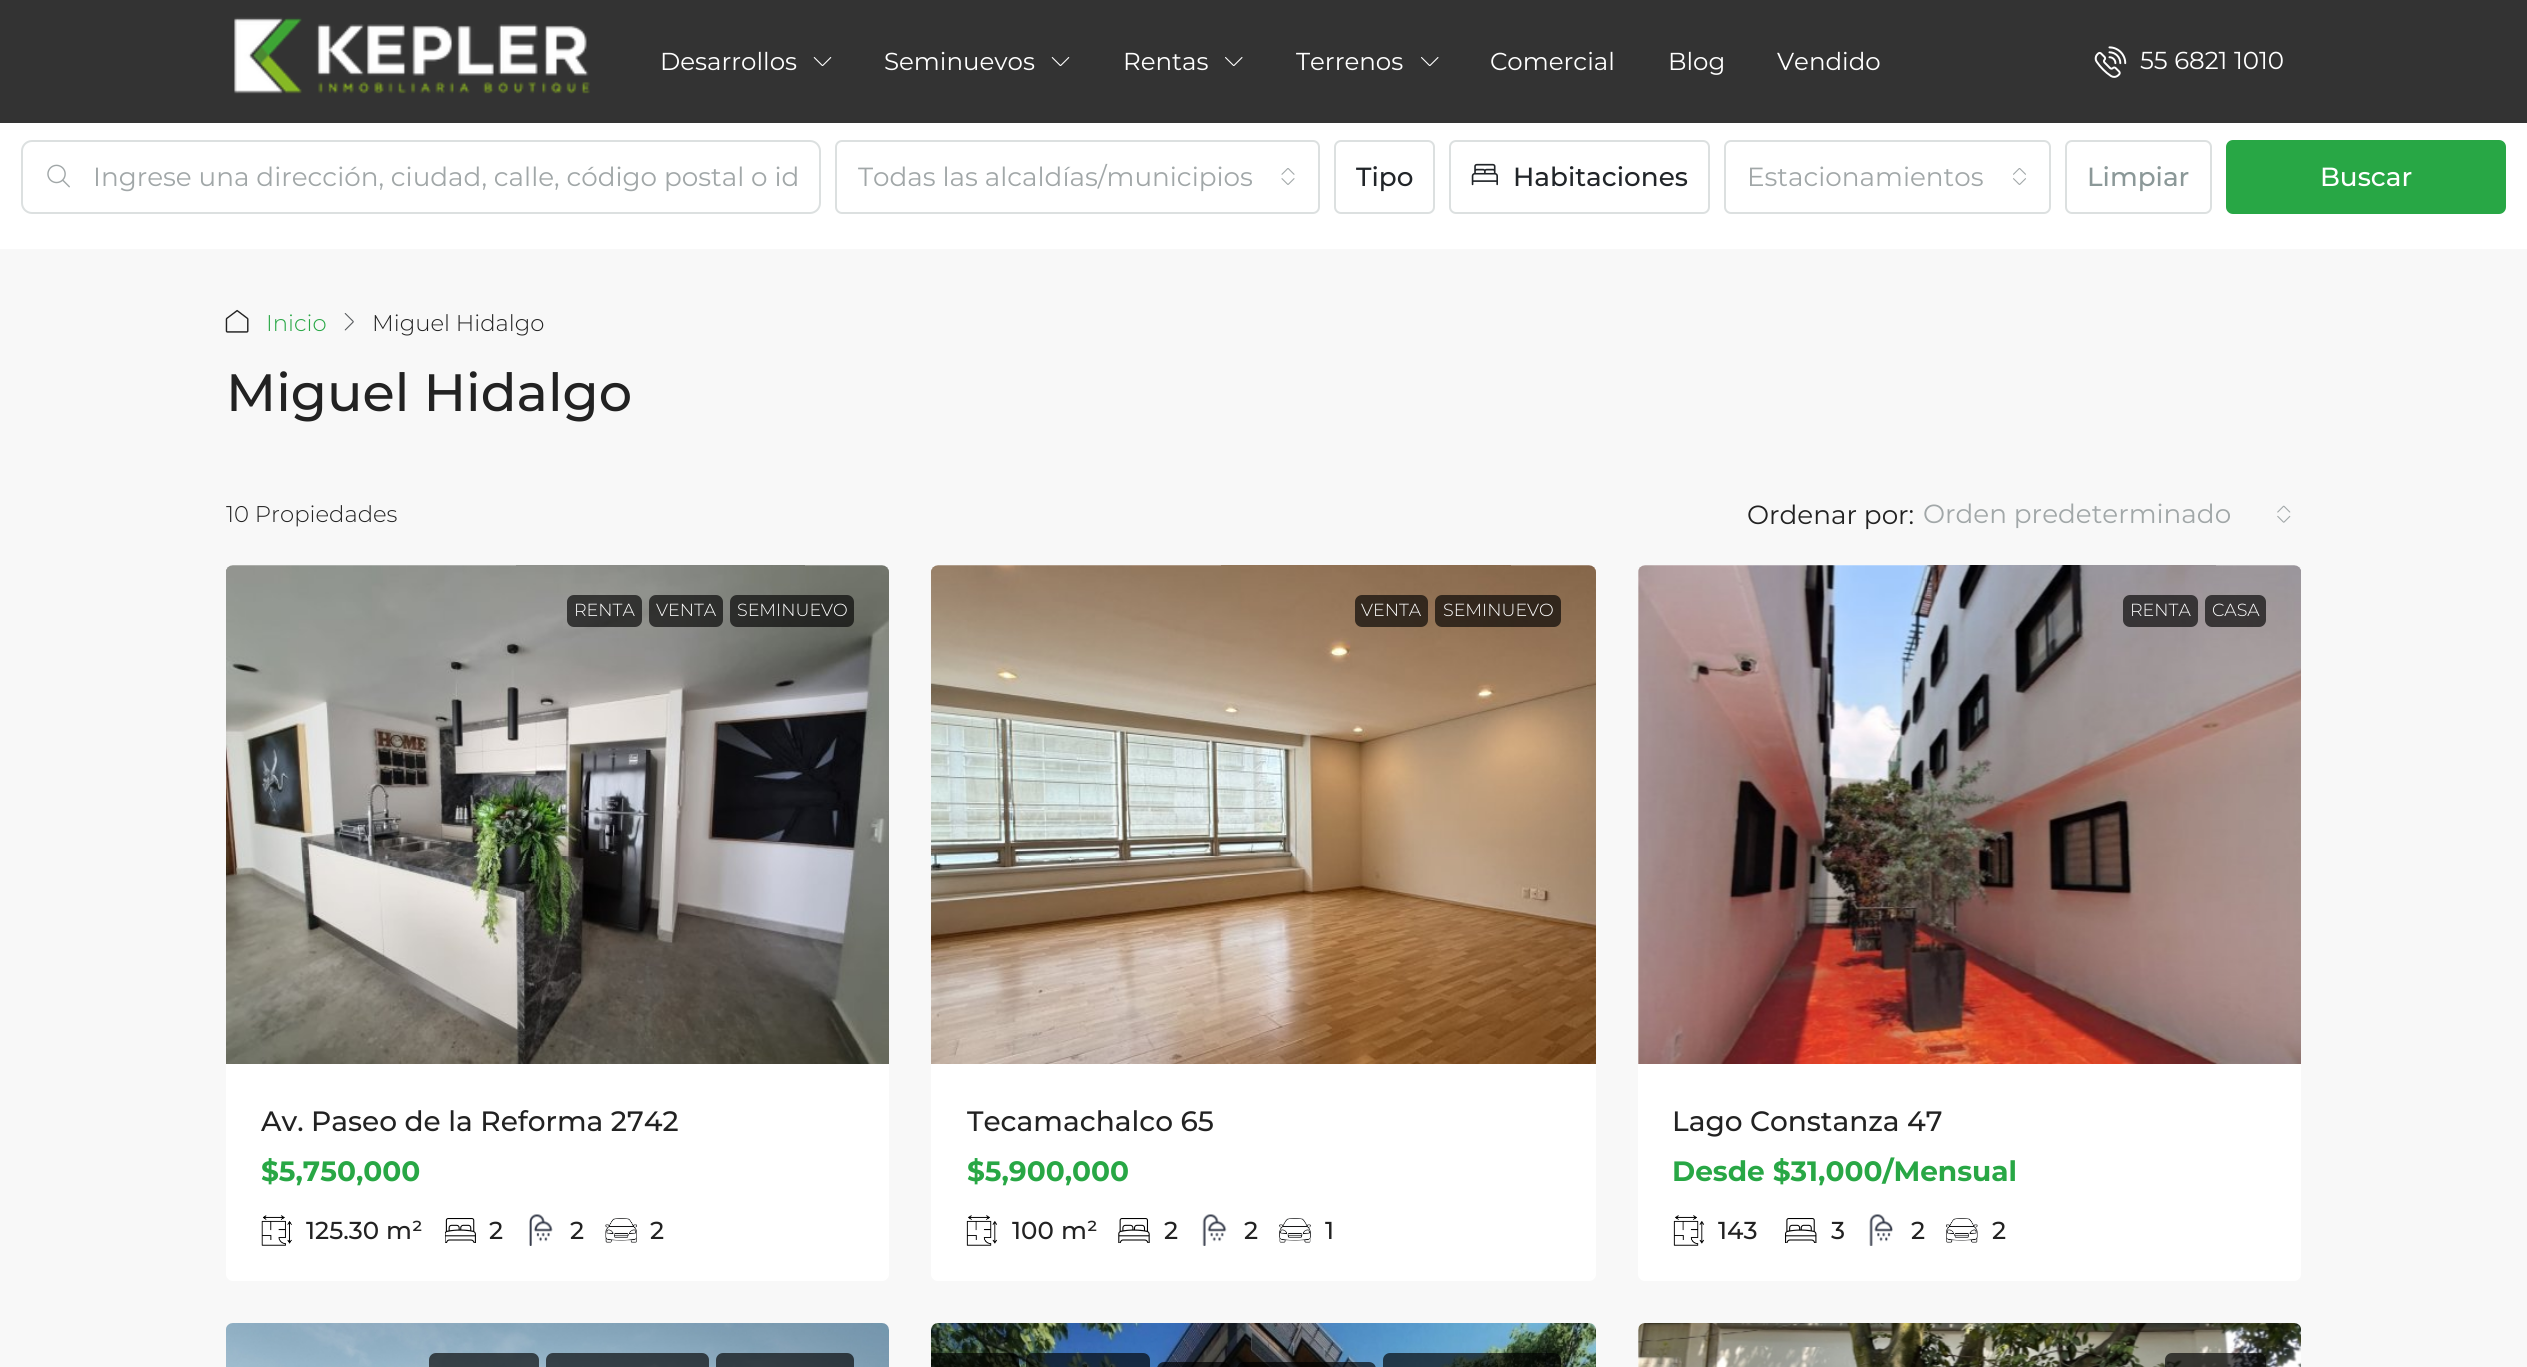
#include <cairo.h>
#include <math.h>
#include <stddef.h>

static cairo_t *c;
static void C(unsigned color){cairo_set_source_rgb(c, (color >> 16) / 255.0, (color >> 8 & 255) / 255.0, (color & 255) / 255.0);}
static void F(const char *family, double size, int italic, int bold){cairo_select_font_face(c, family, italic ? CAIRO_FONT_SLANT_ITALIC : CAIRO_FONT_SLANT_NORMAL,bold ? CAIRO_FONT_WEIGHT_BOLD : CAIRO_FONT_WEIGHT_NORMAL);cairo_set_font_size(c, size);}
static void T(double x, double y, const char *s){cairo_move_to(c, x, y);cairo_show_text(c, s);}
static void R(double x, double y, double w, double h){cairo_rectangle(c, x, y, w, h);cairo_fill(c);}
static void Q(double x, double y, double w, double h, double r){cairo_new_sub_path(c);cairo_arc(c, x + w - r, y + h - r, r, 0, M_PI / 2);cairo_arc(c, x + r, y + h - r, r, M_PI / 2, M_PI);cairo_arc(c, x + r, y + r, r, M_PI, 1.5 * M_PI);cairo_arc(c, x + w - r, y + r, r, 1.5 * M_PI, 2 * M_PI);cairo_close_path(c);}
static void I(const char *path, double x, double y, double w, double h){cairo_surface_t *image = cairo_image_surface_create_from_png(path);cairo_save(c);cairo_set_source_surface(c, image, x, y);cairo_rectangle(c, x, y, w, h);cairo_fill(c);cairo_restore(c);cairo_surface_destroy(image);}
int main(void) {
cairo_surface_t *surface = cairo_image_surface_create(CAIRO_FORMAT_RGB24, 2527, 1367);
c = cairo_create(surface);
cairo_font_options_t *options = cairo_font_options_create();
cairo_font_options_set_hint_metrics(options, CAIRO_HINT_METRICS_OFF);
cairo_font_options_set_hint_style(options, CAIRO_HINT_STYLE_NONE);
cairo_set_font_options(c, options);
cairo_set_miter_limit(c, 4);
C(0xf8f8f8);
cairo_paint(c);
C(0x333333);
R(0,0,2527,123);
I("1.png",234,17,356,77);
F("Montserrat",24.5,0,0);
C(0xffffff);
T(660,70,"Desarrollos");
I("2.png",813,57,19,9);
T(884,70,"Seminuevos");
I("2.png",1051,57,19,9);
T(1123,70,"Rentas");
I("3.png",1225,57,18,9);
T(1296,70,"Terrenos");
I("3.png",1421,57,18,9);
T(1490,70,"Comercial");
T(1668,70,"Blog");
T(1777,70,"Vendido");
I("4.png",2094,46,33,32);
T(2140,69,"55 6821 1010");
R(0,123,2527,126);
Q(22,141,798,72,10);
C(0xdce0e0);
cairo_stroke(c);
I("5.png",47,164,23,24);
F("Montserrat",26.25,0,0);
C(0xa1a7a8);
T(93,186,"Ingrese una dirección, ciudad, calle, código postal o id");
Q(836,141,483,72,6);
C(0xdce0e0);
cairo_stroke(c);
cairo_save(c);
cairo_rectangle(c,858,142,395,70);
cairo_clip(c);
C(0xa1a7a8);
T(858,186,"Todas las alcaldías/municipios");
cairo_restore(c);
I("6.png",1281,168,14,17);
Q(1335,141,99,72,6);
cairo_stroke(c);
F("Montserrat Medium",26.25,0,0);
C(0x212529);
T(1356,186,"Tipo");
Q(1450,141,259,72,6);
C(0xdce0e0);
cairo_stroke(c);
I("7.png",1471,163,27,23);
C(0x212529);
T(1513,186,"Habitaciones");
Q(1725,141,325,72,6);
C(0xdce0e0);
cairo_stroke(c);
F("Montserrat",26.25,0,0);
C(0xa1a7a8);
T(1747,186,"Estacionamientos");
I("8.png",2013,168,13,17);
Q(2066,141,145,72,6);
C(0xdce0e0);
cairo_stroke(c);
F("Montserrat Medium",26.25,0,0);
C(0x8b9898);
T(2087,186,"Limpiar");
C(0x28a745);
Q(2227,141,278,72,6);
cairo_fill_preserve(c);
cairo_stroke(c);
C(0xffffff);
T(2320,186,"Buscar");
I("9.png",225,309,24,24);
F("Montserrat Light",22.75,0,0);
C(0x28a745);
T(266,331,"Inicio");
I("10.png",344,313,10,18);
C(0x222222);
T(372,331,"Miguel Hidalgo");
F("Montserrat Medium",52.5,0,0);
T(226,411,"Miguel Hidalgo");
F("Montserrat Light",22.75,0,0);
T(226,522,"10 Propiedades");
F("Montserrat",26.25,0,0);
T(1747,524,"Ordenar por:");
C(0xa1a7a8);
T(1923,523,"Orden predeterminado");
I("11.png",2277,505,14,18);
C(0xffffff);
Q(226,565,663,716,7);
cairo_fill(c);
I("12.png",226,565,663,499);
cairo_set_source_rgba(c,0,0,0,0.65);
Q(567,595,75,32,7);
cairo_fill(c);
F("Montserrat Light",17.5,0,0);
C(0xffffff);
T(574,616,"RENTA");
cairo_set_source_rgba(c,0,0,0,0.65);
Q(649,595,74,32,7);
cairo_fill(c);
C(0xffffff);
T(656,616,"VENTA");
cairo_set_source_rgba(c,0,0,0,0.65);
Q(730,595,124,32,7);
cairo_fill(c);
C(0xffffff);
T(737,616,"SEMINUEVO");
F("Montserrat Medium",28,0,0);
C(0x222222);
T(261,1131,"Av. Paseo de la Reforma 2742");
F("Montserrat",28,0,1);
C(0x28a745);
T(261,1181,"$5,750,000");
I("13.png",261,1215,31,31);
F("Montserrat Medium",24.5,0,0);
C(0x222222);
T(306,1239,"125.30");
T(386,1239,"m²");
I("14.png",445,1218,31,25);
T(489,1239,"2");
I("15.png",529,1214,24,32);
T(570,1239,"2");
I("16.png",605,1218,32,25);
T(650,1239,"2");
C(0xffffff);
Q(931,565,665,716,7);
cairo_fill(c);
I("17.png",931,565,665,499);
cairo_set_source_rgba(c,0,0,0,0.65);
Q(1355,595,73,32,7);
cairo_fill(c);
F("Montserrat Light",17.5,0,0);
C(0xffffff);
T(1361,616,"VENTA");
cairo_set_source_rgba(c,0,0,0,0.65);
Q(1435,595,126,32,7);
cairo_fill(c);
C(0xffffff);
T(1443,616,"SEMINUEVO");
F("Montserrat Medium",28,0,0);
C(0x222222);
T(967,1131,"Tecamachalco 65");
F("Montserrat",28,0,1);
C(0x28a745);
T(967,1181,"$5,900,000");
I("18.png",966,1215,32,31);
F("Montserrat Medium",24.5,0,0);
C(0x222222);
T(1012,1239,"100");
T(1061,1239,"m²");
I("19.png",1118,1218,32,25);
T(1164,1239,"2");
I("20.png",1202,1214,25,32);
T(1244,1239,"2");
I("21.png",1279,1218,32,25);
T(1325,1239,"1");
C(0xffffff);
Q(1638,565,663,716,7);
cairo_fill(c);
I("22.png",1638,565,663,499);
cairo_set_source_rgba(c,0,0,0,0.65);
Q(2123,595,75,32,7);
cairo_fill(c);
F("Montserrat Light",17.5,0,0);
C(0xffffff);
T(2130,616,"RENTA");
cairo_set_source_rgba(c,0,0,0,0.65);
Q(2205,595,61,32,7);
cairo_fill(c);
C(0xffffff);
T(2212,616,"CASA");
F("Montserrat Medium",28,0,0);
C(0x222222);
T(1672,1131,"Lago Constanza 47");
F("Montserrat",28,0,1);
C(0x28a745);
T(1672,1181,"Desde $31,000/Mensual");
I("18.png",1673,1215,32,31);
F("Montserrat Medium",24.5,0,0);
C(0x222222);
T(1718,1239,"143");
I("23.png",1785,1218,32,25);
T(1831,1239,"3");
I("24.png",1869,1214,24,32);
T(1911,1239,"2");
I("25.png",1946,1218,32,25);
T(1992,1239,"2");
I("26.png",226,1323,663,44);
cairo_set_source_rgba(c,0,0,0,0.65);
Q(429,1353,110,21,7);
cairo_fill(c);
Q(546,1353,163,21,7);
cairo_fill(c);
Q(716,1353,138,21,7);
cairo_fill(c);
I("27.png",931,1323,665,44);
cairo_new_path(c);
cairo_move_to(c,931,1353);
cairo_line_to(c,1012,1353);
cairo_curve_to(c,1016,1353,1019,1356,1019,1360);
cairo_line_to(c,1019,1367);
cairo_curve_to(c,1019,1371,1016,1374,1012,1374);
cairo_line_to(c,931,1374);
cairo_close_path(c);
cairo_fill(c);
Q(1026,1353,124,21,7);
cairo_fill(c);
Q(1157,1362,73,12,7);
cairo_fill(c);
Q(1237,1362,139,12,7);
cairo_fill(c);
Q(1383,1353,178,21,7);
cairo_fill(c);
C(0xffffff);
Q(1638,1323,663,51,7);
cairo_fill(c);
I("28.png",1638,1323,663,44);
cairo_set_source_rgba(c,0,0,0,0.65);
Q(2165,1353,101,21,7);
cairo_fill(c);
cairo_surface_write_to_png(surface, "o.png");
cairo_font_options_destroy(options);
cairo_destroy(c);
cairo_surface_destroy(surface);
return 0;
}
